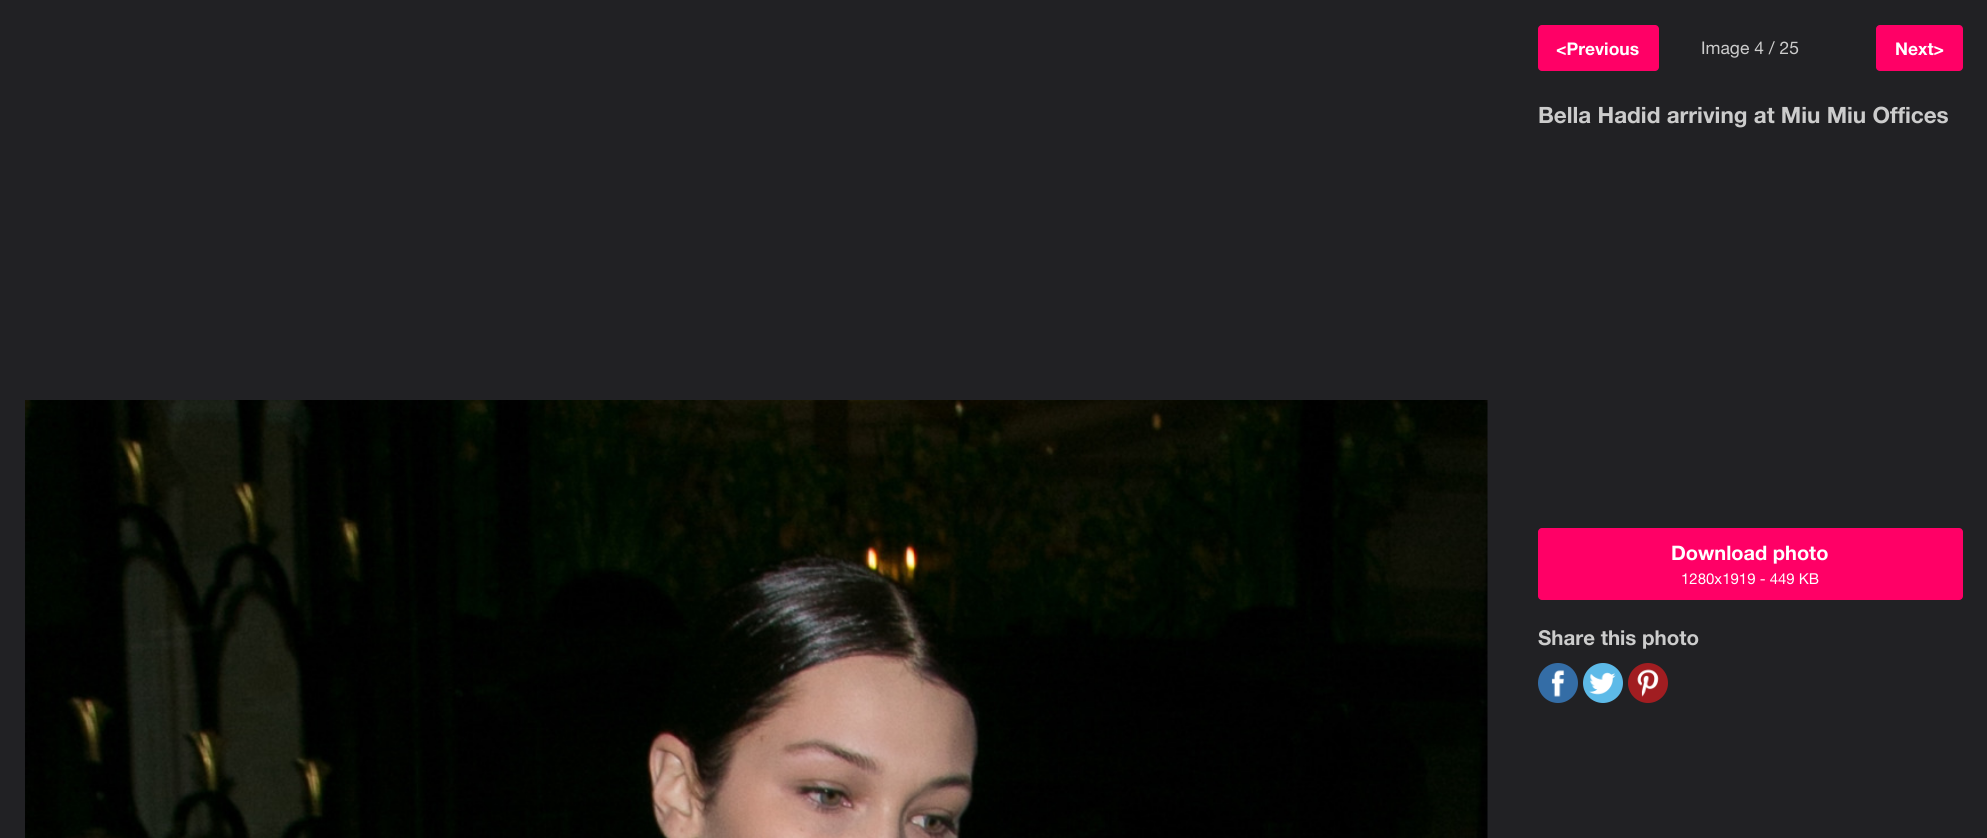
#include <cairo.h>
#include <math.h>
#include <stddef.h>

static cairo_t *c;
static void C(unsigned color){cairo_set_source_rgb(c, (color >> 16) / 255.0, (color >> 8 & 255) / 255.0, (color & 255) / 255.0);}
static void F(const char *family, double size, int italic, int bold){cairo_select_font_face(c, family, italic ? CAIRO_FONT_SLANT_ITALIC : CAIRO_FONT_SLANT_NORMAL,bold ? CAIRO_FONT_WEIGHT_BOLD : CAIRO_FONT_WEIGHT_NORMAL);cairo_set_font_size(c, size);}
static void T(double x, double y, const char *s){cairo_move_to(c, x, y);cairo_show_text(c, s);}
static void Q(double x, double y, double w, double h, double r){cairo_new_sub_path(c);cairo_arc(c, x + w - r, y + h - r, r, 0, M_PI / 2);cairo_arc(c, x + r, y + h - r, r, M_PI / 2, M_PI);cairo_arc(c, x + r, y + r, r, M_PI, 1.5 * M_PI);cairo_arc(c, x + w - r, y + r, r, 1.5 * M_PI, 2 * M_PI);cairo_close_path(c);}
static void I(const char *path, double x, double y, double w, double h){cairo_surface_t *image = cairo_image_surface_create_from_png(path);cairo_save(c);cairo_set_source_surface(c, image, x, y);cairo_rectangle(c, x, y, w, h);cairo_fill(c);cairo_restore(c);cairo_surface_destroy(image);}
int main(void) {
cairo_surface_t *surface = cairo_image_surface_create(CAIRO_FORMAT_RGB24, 1987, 838);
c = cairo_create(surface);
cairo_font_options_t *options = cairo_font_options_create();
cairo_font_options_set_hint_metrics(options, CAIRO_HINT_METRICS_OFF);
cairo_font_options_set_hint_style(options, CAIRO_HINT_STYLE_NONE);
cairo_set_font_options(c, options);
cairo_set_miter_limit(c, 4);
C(0x212124);
cairo_paint(c);
I("1.png",25,400,1463,438);
F("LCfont",17.5,0,0);
C(0xcccccc);
T(1701,54,"Image 4 / 25");
C(0xff0066);
Q(1538,25,121,46,4);
cairo_fill(c);
F("LCfont",17.5,0,1);
C(0xffffff);
T(1556,55,"<Previous");
C(0xff0066);
Q(1876,25,87,46,4);
cairo_fill(c);
C(0xffffff);
T(1895,55,"Next>");
F("LCfont",22.5,0,1);
C(0xcccccc);
T(1538,123,"Bella Hadid arriving at Miu Miu Offices");
C(0xff0066);
Q(1538,528,425,72,4);
cairo_fill(c);
F("LCfont",20,0,1);
C(0xffffff);
T(1671,560,"Download photo");
F("LCfont",15,0,0);
T(1681,584,"1280x1919 - 449 KB");
F("LCfont",20.5,0,1);
C(0xcccccc);
T(1538,645,"Share this photo");
C(0x346da6);
cairo_new_path(c);
cairo_arc(c,1558,683,20,0,2 * M_PI);
cairo_fill(c);
I("2.png",1551,670,14,27);
C(0x5dbae8);
cairo_arc(c,1603,683,20,0,2 * M_PI);
cairo_fill(c);
I("3.png",1589,672,27,23);
C(0xa11d21);
cairo_arc(c,1648,683,20,0,2 * M_PI);
cairo_fill(c);
I("4.png",1637,669,22,28);
cairo_surface_write_to_png(surface, "o.png");
cairo_font_options_destroy(options);
cairo_destroy(c);
cairo_surface_destroy(surface);
return 0;
}
